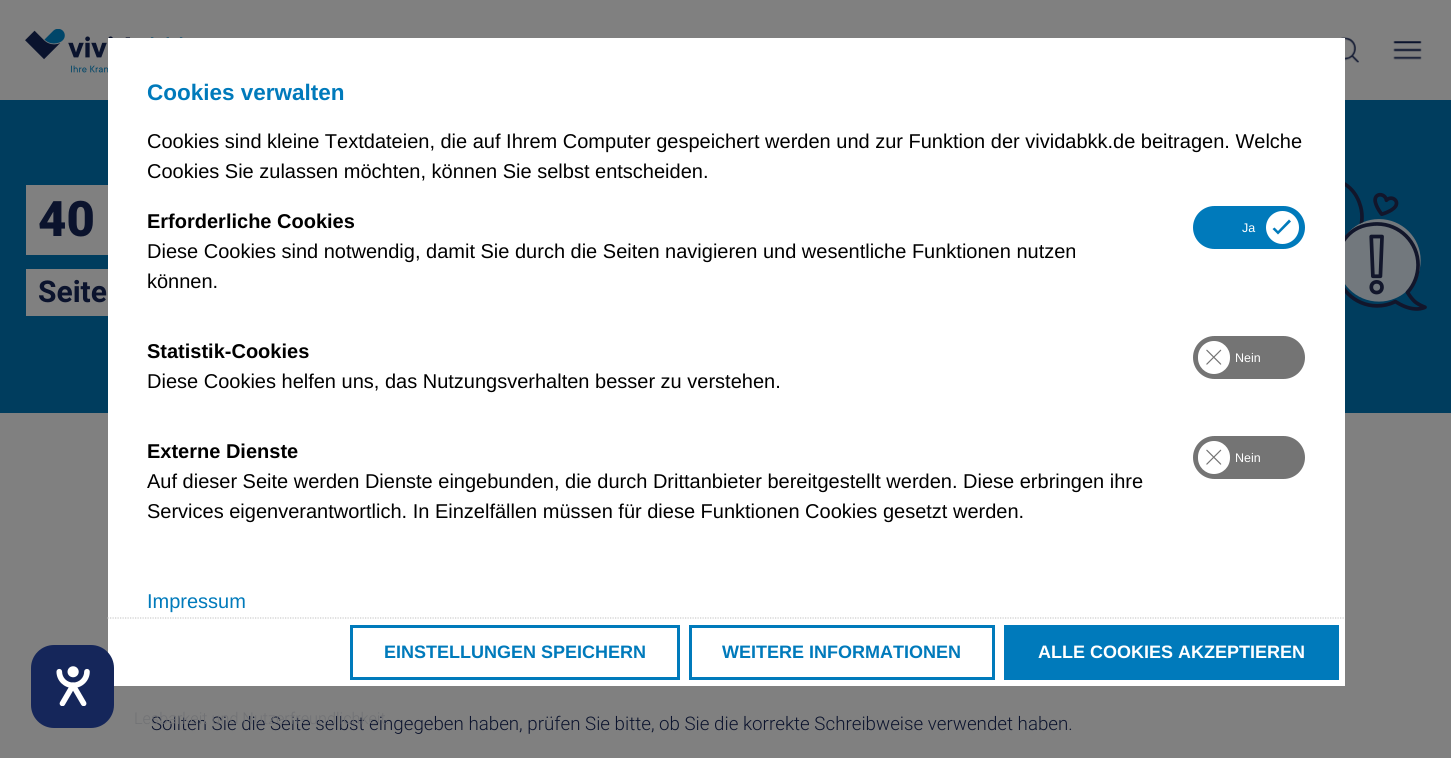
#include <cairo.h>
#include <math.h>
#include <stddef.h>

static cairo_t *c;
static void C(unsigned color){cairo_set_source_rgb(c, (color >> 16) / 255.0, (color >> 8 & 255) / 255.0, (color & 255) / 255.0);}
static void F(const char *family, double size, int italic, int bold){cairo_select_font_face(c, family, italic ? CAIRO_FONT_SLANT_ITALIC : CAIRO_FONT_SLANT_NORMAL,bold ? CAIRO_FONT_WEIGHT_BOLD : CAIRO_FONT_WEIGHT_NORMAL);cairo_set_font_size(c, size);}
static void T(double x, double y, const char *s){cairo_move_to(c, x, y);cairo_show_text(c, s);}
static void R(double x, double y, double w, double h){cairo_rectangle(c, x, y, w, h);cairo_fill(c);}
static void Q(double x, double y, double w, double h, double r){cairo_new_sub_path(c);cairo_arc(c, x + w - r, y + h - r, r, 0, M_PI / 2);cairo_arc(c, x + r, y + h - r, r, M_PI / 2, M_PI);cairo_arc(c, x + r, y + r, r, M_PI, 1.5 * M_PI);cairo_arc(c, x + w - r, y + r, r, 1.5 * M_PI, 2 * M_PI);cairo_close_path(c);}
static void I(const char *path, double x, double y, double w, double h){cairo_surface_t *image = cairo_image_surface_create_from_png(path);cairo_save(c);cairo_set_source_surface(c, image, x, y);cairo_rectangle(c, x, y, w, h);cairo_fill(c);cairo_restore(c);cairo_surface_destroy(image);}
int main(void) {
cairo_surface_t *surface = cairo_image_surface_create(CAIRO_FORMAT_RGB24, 1451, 758);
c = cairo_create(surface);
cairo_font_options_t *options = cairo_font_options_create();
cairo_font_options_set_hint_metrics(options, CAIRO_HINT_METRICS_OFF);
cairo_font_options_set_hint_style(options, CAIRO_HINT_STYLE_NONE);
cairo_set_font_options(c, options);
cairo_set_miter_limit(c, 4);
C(0x808080);
cairo_paint(c);
I("1.png",25,29,158,44);
I("2.png",1341,37,18,26);
I("3.png",1393,41,29,19);
C(0x003d5e);
R(0,100,1451,313);
C(0x808080);
R(26,185,82,70);
F("Roboto Black",49,0,0);
C(0x0b132d);
T(38,236,"40");
C(0x808080);
R(26,269,82,47);
F("Roboto",30,0,1);
C(0x0b132d);
T(38,302,"Seite");
I("4.png",1345,182,82,129);
C(0xffffff);
R(108,38,1237,648);
F("Liberation Sans",22.5,0,1);
C(0x007abb);
T(147,100,"Cookies verwalten");
F("Liberation Sans",20,0,0);
C(0x000000);
T(147,148,"Cookies sind kleine Textdateien, die auf Ihrem Computer gespeichert werden und zur Funktion der vividabkk.de beitragen. Welche");
T(147,178,"Cookies Sie zulassen möchten, können Sie selbst entscheiden.");
F("Liberation Sans",20,0,1);
T(147,228,"Erforderliche Cookies");
F("Liberation Sans",20,0,0);
T(147,258,"Diese Cookies sind notwendig, damit Sie durch die Seiten navigieren und wesentliche Funktionen nutzen");
T(147,288,"können.");
C(0x007abb);
Q(1193,206,112,43,21.5);
cairo_fill(c);
F("Liberation Sans",12.5,0,0);
C(0xffffff);
T(1242,232,"Ja");
cairo_new_path(c);
cairo_arc(c,1282.5,227.5,16.5,0,2 * M_PI);
cairo_fill(c);
C(0x007abb);
cairo_new_path(c);
cairo_move_to(c,1278,231);
cairo_line_to(c,1274.5,227.5);
cairo_line_to(c,1272.5,229);
cairo_line_to(c,1278,234.5);
cairo_line_to(c,1291,221.5);
cairo_line_to(c,1289,219.5);
cairo_close_path(c);
cairo_fill(c);
F("Liberation Sans",20,0,1);
C(0x000000);
T(147,358,"Statistik-Cookies");
F("Liberation Sans",20,0,0);
T(147,388,"Diese Cookies helfen uns, das Nutzungsverhalten besser zu verstehen.");
C(0x747474);
Q(1193,336,112,43,21.5);
cairo_fill(c);
C(0xffffff);
Q(1198,341,32,33,16);
cairo_fill(c);
I("5.png",1206,349,16,16);
F("Liberation Sans",12.5,0,0);
T(1235,362,"Nein");
F("Liberation Sans",20,0,1);
C(0x000000);
T(147,458,"Externe Dienste");
F("Liberation Sans",20,0,0);
T(147,488,"Auf dieser Seite werden Dienste eingebunden, die durch Drittanbieter bereitgestellt werden. Diese erbringen ihre");
T(147,518,"Services eigenverantwortlich. In Einzelfällen müssen für diese Funktionen Cookies gesetzt werden.");
C(0x747474);
Q(1193,436,112,43,21.5);
cairo_fill(c);
C(0xffffff);
Q(1198,441,32,33,16);
cairo_fill(c);
I("5.png",1206,449,16,16);
F("Liberation Sans",12.5,0,0);
T(1235,462,"Nein");
F("Liberation Sans",20,0,0);
C(0x007abb);
T(147,608,"Impressum");
cairo_new_path(c);
cairo_move_to(c,107.5,618);
cairo_line_to(c,1345,618);
C(0xcccccc);
cairo_set_line_width(c,1.2);
cairo_set_dash(c,(double[]){1.25,1.25},2,0);
cairo_stroke(c);
cairo_rectangle(c,351.5,626.5,327,52);
C(0x007abb);
cairo_set_line_width(c,3);
cairo_set_dash(c,NULL,0,0);
cairo_stroke(c);
F("Liberation Sans",18,0,1);
T(384,658,"EINSTELLUNGEN SPEICHERN");
cairo_rectangle(c,690.5,626.5,303,52);
cairo_stroke(c);
T(722,658,"WEITERE INFORMATIONEN");
R(1004,625,335,55);
C(0xffffff);
T(1038,658,"ALLE COOKIES AKZEPTIEREN");
C(0x15265a);
Q(31,645,83,83,23);
cairo_fill(c);
I("6.png",56,666,34,40);
F("Roboto Light",18.75,0,0);
C(0x0b132d);
T(151,730,"Sollten Sie die Seite selbst eingegeben haben, prüfen Sie bitte, ob Sie die korrekte Schreibweise verwendet haben.");
F("Roboto Light",16.25,0,0);
C(0x717275);
T(134,724,"Lesbarkeit und Nutzerfreundlichkeit.");
cairo_surface_write_to_png(surface, "o.png");
cairo_font_options_destroy(options);
cairo_destroy(c);
cairo_surface_destroy(surface);
return 0;
}
